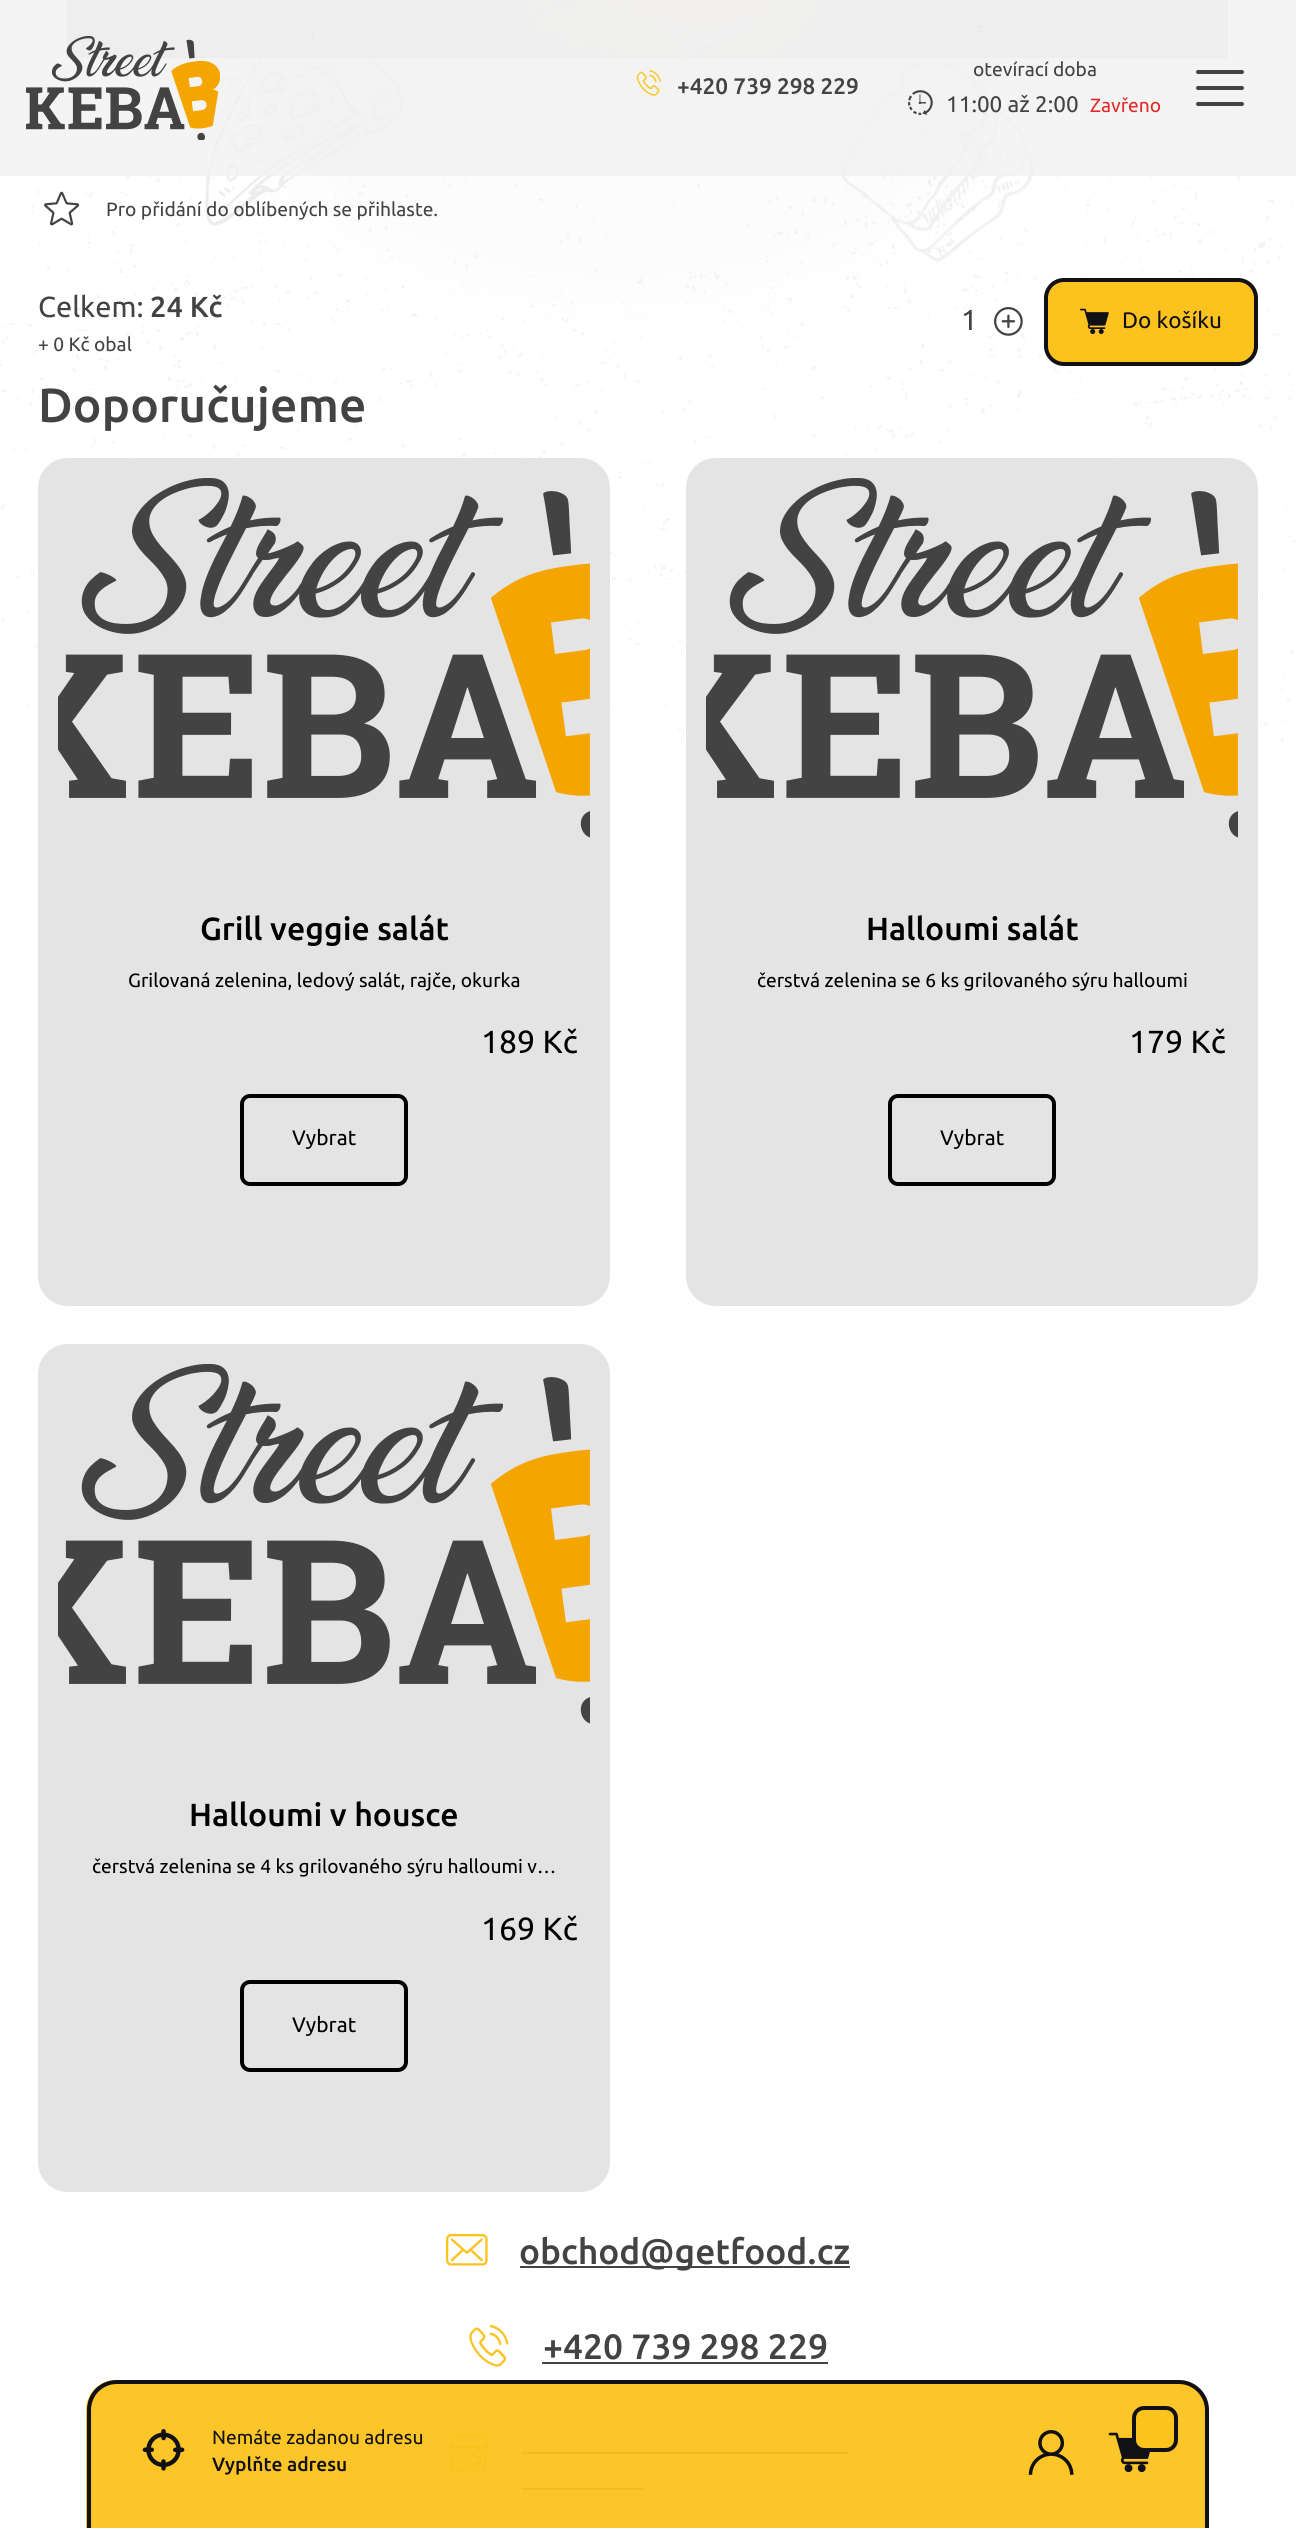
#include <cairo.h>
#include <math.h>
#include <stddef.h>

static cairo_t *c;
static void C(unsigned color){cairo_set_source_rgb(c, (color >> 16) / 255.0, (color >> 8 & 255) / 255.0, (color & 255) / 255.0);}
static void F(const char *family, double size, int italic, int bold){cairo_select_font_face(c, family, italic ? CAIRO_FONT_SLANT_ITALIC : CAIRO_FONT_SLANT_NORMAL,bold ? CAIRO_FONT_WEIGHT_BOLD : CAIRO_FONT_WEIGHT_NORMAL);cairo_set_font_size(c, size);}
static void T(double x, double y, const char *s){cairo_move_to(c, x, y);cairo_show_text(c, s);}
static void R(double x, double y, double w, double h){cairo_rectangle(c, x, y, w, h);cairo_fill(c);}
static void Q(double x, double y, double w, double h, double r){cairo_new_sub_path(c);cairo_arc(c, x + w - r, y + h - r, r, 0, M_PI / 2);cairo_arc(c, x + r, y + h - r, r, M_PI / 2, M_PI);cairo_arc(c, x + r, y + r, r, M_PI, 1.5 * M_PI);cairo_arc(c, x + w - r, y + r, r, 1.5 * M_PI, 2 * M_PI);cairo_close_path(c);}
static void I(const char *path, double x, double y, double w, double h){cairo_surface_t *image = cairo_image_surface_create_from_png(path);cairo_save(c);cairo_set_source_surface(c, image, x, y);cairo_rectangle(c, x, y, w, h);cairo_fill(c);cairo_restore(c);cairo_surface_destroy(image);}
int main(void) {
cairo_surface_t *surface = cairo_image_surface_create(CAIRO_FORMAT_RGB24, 1296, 2528);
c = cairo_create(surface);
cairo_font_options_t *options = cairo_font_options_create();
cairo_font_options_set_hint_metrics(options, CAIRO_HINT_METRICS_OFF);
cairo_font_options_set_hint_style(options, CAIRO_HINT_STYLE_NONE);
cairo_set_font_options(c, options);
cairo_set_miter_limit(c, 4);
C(0xffffff);
cairo_paint(c);
I("1.png",0,2,1296,740);
C(0xffffff);
Q(38,-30,1220,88,30);
cairo_fill(c);
I("5.png",66,0,1162,58);
cairo_set_source_rgba(c,0.945,0.945,0.945,0.8);
R(0,0,1296,176);
I("2.png",26,36,194,104);
I("3.png",636,70,25,26);
F("Ubuntu Medium",22.5,0,0);
C(0x434343);
T(677,94,"+420 739 298 229");
F("Ubuntu",19.2,0,0);
T(973,76,"otevírací doba");
I("4.png",908,90,25,25);
F("Ubuntu",22.5,0,0);
T(946,112,"11:00 až 2:00");
F("Ubuntu",19.2,0,0);
C(0xe22a2a);
T(1090,112,"Zavřeno");
C(0x434343);
Q(1196,86,48,4,2);
cairo_fill(c);
Q(1196,70,48,4,2);
cairo_fill(c);
Q(1196,102,48,4,2);
cairo_fill(c);
I("6.png",44,191,36,35);
T(106,216,"Pro přidání do oblíbených se přihlaste.");
F("Ubuntu",29,0,0);
T(38,317,"Celkem:");
F("Ubuntu Medium",29,0,0);
T(150,317,"24 Kč");
F("Ubuntu",19.2,0,0);
T(38,351,"+ 0 Kč obal");
F("Ubuntu",29,0,0);
T(961,330,"1");
I("7.png",994,307,29,29);
C(0xfcc21e);
Q(1046,280,210,84,18);
cairo_fill_preserve(c);
C(0x111015);
cairo_set_line_width(c,4);
cairo_stroke(c);
I("8.png",1080,308,29,26);
F("Ubuntu",22.5,0,0);
T(1122,328,"Do košíku");
F("Ubuntu Medium",48,0,0);
C(0x434343);
T(38,422,"Doporučujeme");
C(0xe4e4e4);
Q(38,458,572,848,30);
cairo_fill(c);
I("9.png",58,478,532,360);
F("Ubuntu Medium",32,0,0);
C(0x000000);
T(200,940,"Grill veggie salát");
F("Ubuntu",19.2,0,0);
T(128,987,"Grilovaná zelenina, ledový salát, rajče, okurka");
F("Ubuntu",32,0,0);
T(481,1053,"189 Kč");
Q(242,1096,164,88,8);
cairo_stroke(c);
F("Ubuntu",21,0,0);
T(292,1145,"Vybrat");
C(0xe4e4e4);
Q(686,458,572,848,30);
cairo_fill(c);
I("10.png",706,478,532,360);
F("Ubuntu Medium",32,0,0);
C(0x000000);
T(866,940,"Halloumi salát");
F("Ubuntu",19.2,0,0);
T(757,987,"čerstvá zelenina se 6 ks grilovaného sýru halloumi");
F("Ubuntu",32,0,0);
T(1129,1053,"179 Kč");
Q(890,1096,164,88,8);
cairo_stroke(c);
F("Ubuntu",21,0,0);
T(940,1145,"Vybrat");
C(0xe4e4e4);
Q(38,1344,572,848,30);
cairo_fill(c);
I("9.png",58,1364,532,360);
F("Ubuntu Medium",32,0,0);
C(0x000000);
T(189,1826,"Halloumi v housce");
F("Ubuntu",19.2,0,0);
T(92,1873,"čerstvá zelenina se 4 ks grilovaného sýru halloumi v…");
F("Ubuntu",32,0,0);
T(481,1940,"169 Kč");
Q(242,1982,164,88,8);
cairo_stroke(c);
F("Ubuntu",21,0,0);
T(292,2032,"Vybrat");
I("11.png",446,2233,42,33);
C(0x434343);
R(520,2266,330,2);
F("Ubuntu Medium",35.25,0,0);
T(519,2264,"obchod@getfood.cz");
I("12.png",469,2325,40,42);
T(543,2359,"+420 739 298 229");
R(542,2362,286,2);
I("13.png",448,2435,42,37);
R(522,2452,326,2);
R(522,2488,122,2);
cairo_set_source_rgba(c,0.988,0.761,0.118,0.95);
cairo_new_path(c);
cairo_move_to(c,116,2380);
cairo_line_to(c,1178,2380);
cairo_curve_to(c,1194.5,2380,1208,2393.5,1208,2410);
cairo_line_to(c,1208,2528);
cairo_line_to(c,86,2528);
cairo_line_to(c,86,2410);
cairo_curve_to(c,86,2393.5,99.5,2380,116,2380);
cairo_close_path(c);
cairo_fill(c);
C(0x111015);
cairo_set_fill_rule(c,CAIRO_FILL_RULE_EVEN_ODD);
cairo_new_path(c);
cairo_move_to(c,117,2380);
cairo_line_to(c,1179,2380);
cairo_curve_to(c,1195,2380,1209,2393,1209,2410);
cairo_line_to(c,1209,2528);
cairo_line_to(c,87,2528);
cairo_line_to(c,87,2410);
cairo_curve_to(c,87,2393,100,2380,117,2380);
cairo_close_path(c);
cairo_move_to(c,117,2384);
cairo_line_to(c,1179,2384);
cairo_curve_to(c,1193,2384,1205,2396,1205,2410);
cairo_line_to(c,1205,2528);
cairo_line_to(c,91,2528);
cairo_line_to(c,91,2410);
cairo_curve_to(c,91,2396,102,2384,117,2384);
cairo_close_path(c);
cairo_fill(c);
I("14.png",142,2429,43,42);
F("Ubuntu",19.2,0,0);
T(212,2444,"Nemáte zadanou adresu");
F("Ubuntu Medium",19.2,0,0);
T(212,2471,"Vyplňte adresu");
I("15.png",1028,2430,46,45);
I("16.png",1108,2432,42,41);
C(0xfcc21e);
Q(1134,2408,42,42,10);
cairo_fill_preserve(c);
C(0x111015);
cairo_stroke(c);
cairo_surface_write_to_png(surface, "o.png");
cairo_font_options_destroy(options);
cairo_destroy(c);
cairo_surface_destroy(surface);
return 0;
}
